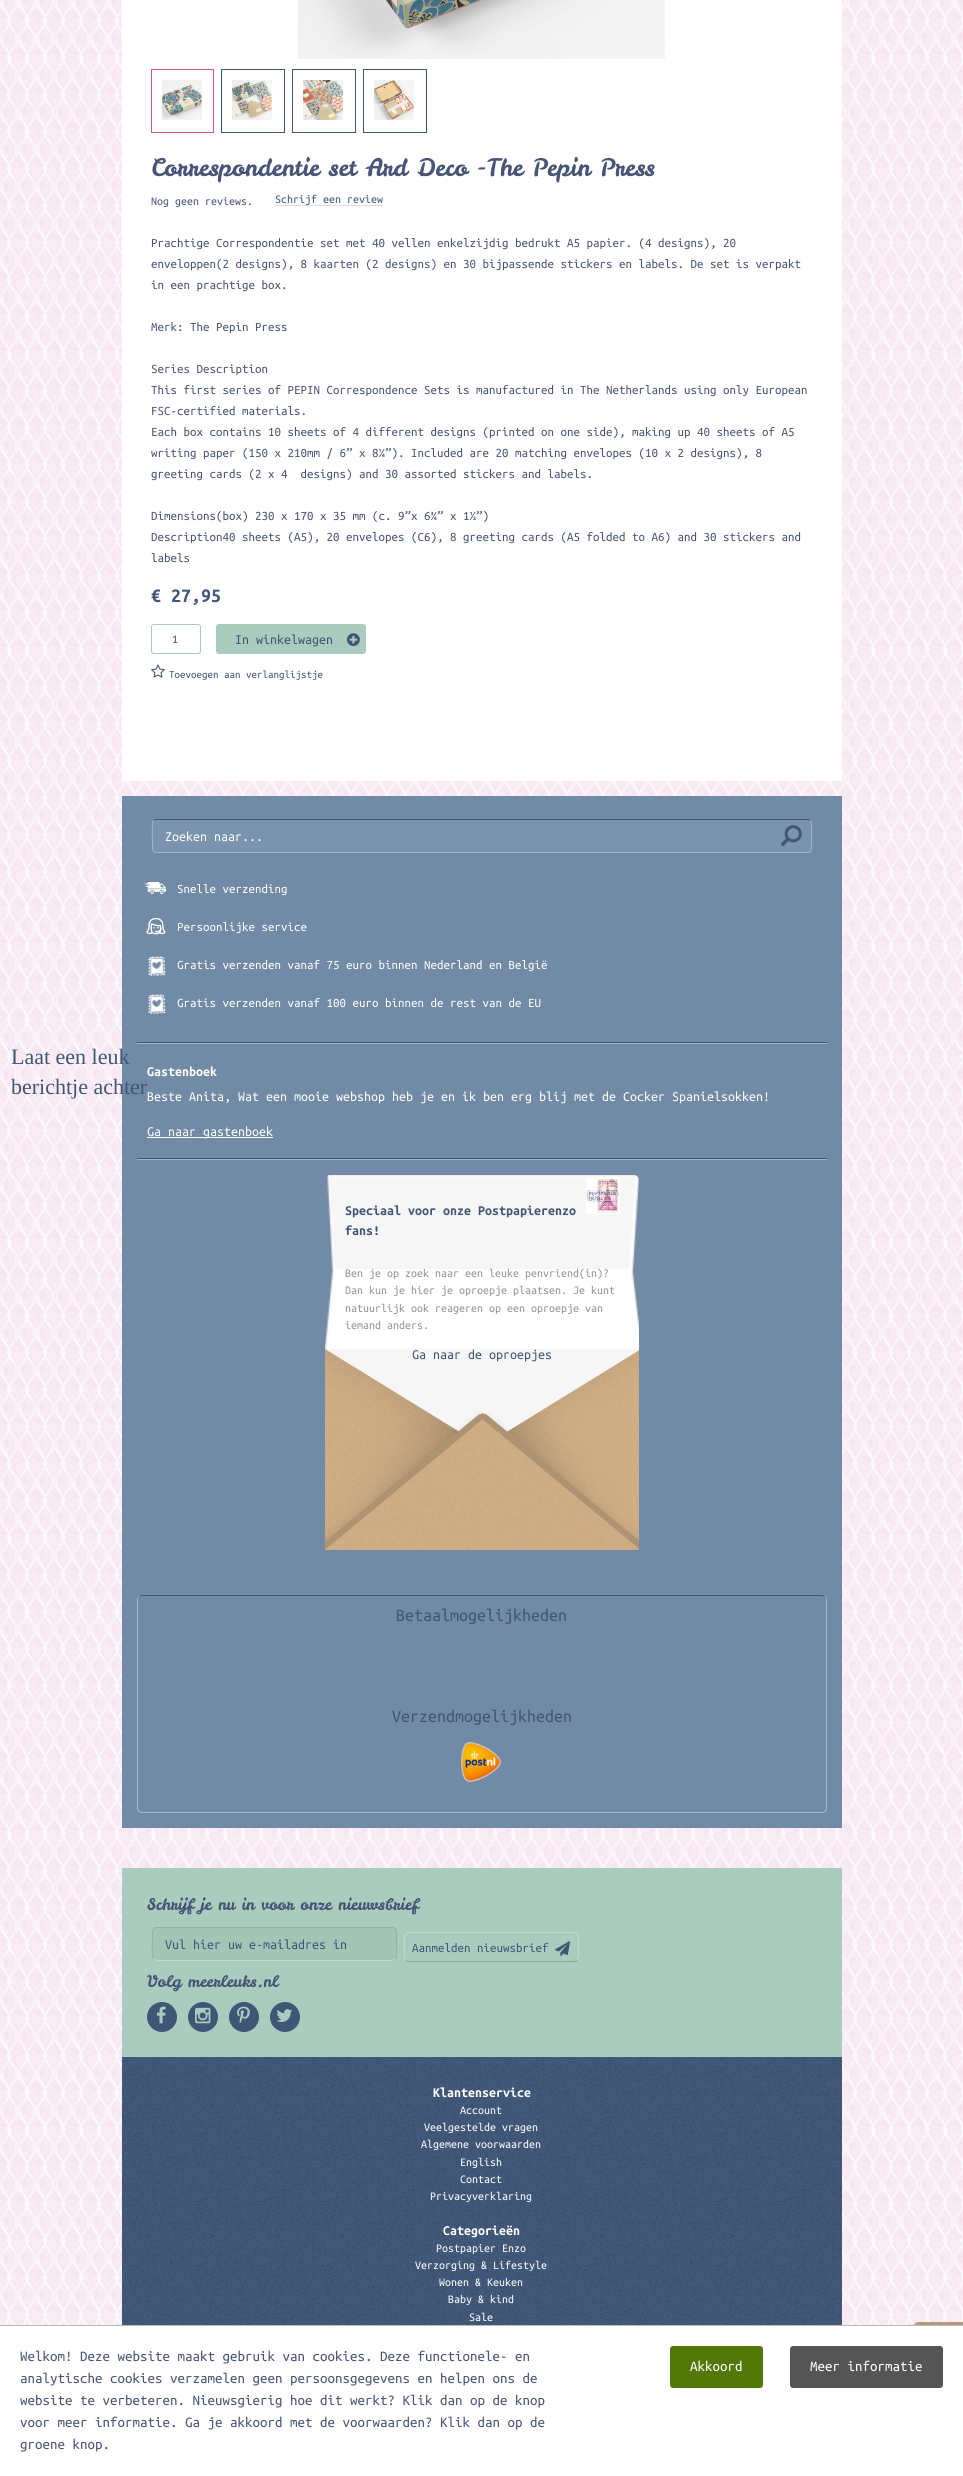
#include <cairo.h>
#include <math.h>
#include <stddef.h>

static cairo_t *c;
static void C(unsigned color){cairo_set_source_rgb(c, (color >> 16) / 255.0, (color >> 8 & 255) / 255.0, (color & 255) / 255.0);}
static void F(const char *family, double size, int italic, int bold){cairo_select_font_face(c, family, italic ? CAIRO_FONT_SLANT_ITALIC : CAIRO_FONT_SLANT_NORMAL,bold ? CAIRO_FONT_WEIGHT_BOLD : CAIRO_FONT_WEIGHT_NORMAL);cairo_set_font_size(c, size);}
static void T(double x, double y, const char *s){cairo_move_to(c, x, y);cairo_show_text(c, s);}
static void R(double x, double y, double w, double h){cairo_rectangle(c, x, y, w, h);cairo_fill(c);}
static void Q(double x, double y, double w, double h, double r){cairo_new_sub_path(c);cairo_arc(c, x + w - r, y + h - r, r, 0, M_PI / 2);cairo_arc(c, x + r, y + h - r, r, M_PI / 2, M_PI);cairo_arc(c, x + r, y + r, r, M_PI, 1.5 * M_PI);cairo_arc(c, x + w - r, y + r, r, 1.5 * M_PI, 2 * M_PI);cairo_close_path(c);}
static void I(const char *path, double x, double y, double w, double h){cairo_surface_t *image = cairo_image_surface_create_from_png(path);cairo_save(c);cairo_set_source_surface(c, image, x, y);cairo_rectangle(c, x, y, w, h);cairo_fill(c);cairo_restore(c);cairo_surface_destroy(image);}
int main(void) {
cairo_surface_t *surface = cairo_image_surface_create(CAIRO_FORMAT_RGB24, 963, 2476);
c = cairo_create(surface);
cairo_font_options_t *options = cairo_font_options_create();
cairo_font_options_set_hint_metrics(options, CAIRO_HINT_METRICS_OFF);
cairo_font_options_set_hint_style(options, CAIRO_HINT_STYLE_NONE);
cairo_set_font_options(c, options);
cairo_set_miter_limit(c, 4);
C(0xffffff);
cairo_paint(c);
I("1.png",0,0,963,2325);
C(0xffffff);
R(122,0,720,781);
I("2.png",298,0,367,59);
cairo_rectangle(c,151.5,69.5,62,63);
C(0xca5998);
cairo_set_line_width(c,1);
cairo_stroke(c);
I("3.png",162,80,40,40);
cairo_rectangle(c,221.5,69.5,63,63);
C(0x405677);
cairo_stroke(c);
I("4.png",232,80,40,40);
cairo_rectangle(c,292.5,69.5,63,63);
cairo_stroke(c);
I("5.png",303,80,40,40);
cairo_rectangle(c,363.5,69.5,63,63);
cairo_stroke(c);
I("6.png",374,80,40,40);
F("Leckerli One",24,0,0);
C(0x485576);
T(151,176,"Correspondentie set Ard Deco -The Pepin Press");
F("Ubuntu Mono",12,0,0);
T(151,205,"Nog geen reviews.");
C(0xdbdde1);
R(275,205,108,1);
C(0x405677);
T(275,203,"Schrijf een review");
F("Ubuntu Mono",13,0,0);
C(0x485576);
T(151,247,"Prachtige Correspondentie set met 40 vellen enkelzijdig bedrukt A5 papier. (4 designs), 20");
T(151,268,"enveloppen(2 designs), 8 kaarten (2 designs) en 30 bijpassende stickers en labels. De set is verpakt");
T(151,289,"in een prachtige box.");
T(151,331,"Merk: The Pepin Press");
T(151,373,"Series Description");
T(151,394,"This first series of PEPIN Correspondence Sets is manufactured in The Netherlands using only European");
T(151,415,"FSC-certified materials.");
T(151,436,"Each box contains 10 sheets of 4 different designs (printed on one side), making up 40 sheets of A5");
T(151,457,"writing paper (150 x 210mm / 6” x 8¼”). Included are 20 matching envelopes (10 x 2 designs), 8");
T(151,478,"greeting cards (2 x 4  designs) and 30 assorted stickers and labels.");
T(151,520,"Dimensions(box) 230 x 170 x 35 mm (c. 9”x 6¾” x 1½”)");
T(151,541,"Description40 sheets (A5), 20 envelopes (C6), 8 greeting cards (A5 folded to A6) and 30 stickers and");
T(151,562,"labels");
F("Ubuntu Mono",20,0,1);
C(0x405677);
T(151,602,"€ 27,95");
Q(151.5,624.5,49,29,2.5);
C(0xaaccbe);
cairo_stroke(c);
F("Ubuntu Mono",12,0,0);
C(0x555555);
T(172,643,"1");
C(0xaaccbe);
Q(216,624,150,30,3);
cairo_fill(c);
F("Ubuntu Mono",14,0,0);
C(0x405677);
T(235,644,"In winkelwagen");
I("7.png",347,633,13,14);
I("8.png",151,664,14,14);
F("Ubuntu Mono",11,0,0);
T(169,678,"Toevoegen aan verlanglijstje");
C(0x718aa5);
R(122,796,720,1032);
C(0x7a93ae);
Q(152,819,660,34,4);
cairo_fill(c);
cairo_new_path(c);
cairo_move_to(c,153.5,820.5);
cairo_line_to(c,156,819.5);
cairo_line_to(c,808,819.5);
cairo_line_to(c,810.5,820.5);
C(0x405677);
cairo_stroke(c);
cairo_new_path(c);
cairo_move_to(c,810.5,820.5);
cairo_curve_to(c,812.5,823,811.5,841,811.5,844.5);
cairo_curve_to(c,811.5,847.5,812,852.5,808,852.5);
cairo_line_to(c,156,852.5);
cairo_curve_to(c,152,852.5,152.5,847.5,152.5,844.5);
cairo_curve_to(c,152.5,841,151.5,823,153.5,820.5);
C(0x9bb5d3);
cairo_stroke(c);
F("Ubuntu Mono",14,0,0);
C(0xffffff);
T(165,841,"Zoeken naar...");
I("9.png",781,825,21,21);
C(0x405677);
R(137,1042,690,1);
C(0x9ab6d4);
R(137,1043,690,1);
I("10.png",144,882,22,12);
F("Ubuntu Mono",13,0,0);
C(0xffffff);
T(177,893,"Snelle verzending");
I("11.png",146,917,20,18);
T(177,931,"Persoonlijke service");
I("12.png",148,956,18,21);
T(177,969,"Gratis verzenden vanaf 75 euro binnen Nederland en België");
I("12.png",148,994,18,21);
T(177,1007,"Gratis verzenden vanaf 100 euro binnen de rest van de EU");
C(0x405677);
R(137,1158,690,1);
C(0x9ab6d4);
R(137,1159,690,1);
F("Liberation Serif",22,0,0);
C(0x405677);
T(11,1064,"Laat een leuk");
T(11,1094,"berichtje achter");
F("Ubuntu Mono",14,0,1);
C(0xffffff);
T(147,1076,"Gastenboek");
F("Ubuntu Mono",14,0,0);
T(147,1101,"Beste Anita, Wat een mooie webshop heb je en ik ben erg blij met de Cocker Spanielsokken!");
R(147,1137,126,1);
T(147,1136,"Ga naar gastenboek");
I("13.png",325,1175,314,257);
I("14.png",586,1178,34,36);
F("Ubuntu Mono",14,0,1);
C(0x405677);
T(345,1215,"Speciaal voor onze Postpapierenzo");
T(345,1235,"fans!");
F("Ubuntu Mono",12,0,0);
C(0x919499);
T(345,1277,"Ben je op zoek naar een leuke penvriend(in)?");
T(345,1294,"Dan kun je hier je oproepje plaatsen. Je kunt");
T(345,1312,"natuurlijk ook reageren op een oproepje van");
T(345,1329,"iemand anders.");
F("Ubuntu Mono",14,0,0);
C(0x405677);
T(412,1359,"Ga naar de oproepjes");
I("15.png",325,1349,314,201);
cairo_new_path(c);
cairo_move_to(c,142,1596);
cairo_line_to(c,822,1596);
cairo_curve_to(c,824,1596,826,1598,826,1601);
cairo_line_to(c,826,1600);
cairo_curve_to(c,826,1597,824,1595,822,1595);
cairo_line_to(c,142,1595);
cairo_curve_to(c,140,1595,138,1597,138,1600);
cairo_line_to(c,138,1601);
cairo_curve_to(c,138,1598,140,1596,142,1596);
cairo_close_path(c);
cairo_fill(c);
C(0xa0bad6);
cairo_set_fill_rule(c,CAIRO_FILL_RULE_EVEN_ODD);
cairo_new_path(c);
cairo_move_to(c,142,1595);
cairo_line_to(c,822,1595);
cairo_curve_to(c,825,1595,827,1597,827,1600);
cairo_line_to(c,827,1808);
cairo_curve_to(c,827,1811,825,1813,822,1813);
cairo_line_to(c,142,1813);
cairo_curve_to(c,139,1813,137,1811,137,1808);
cairo_line_to(c,137,1600);
cairo_curve_to(c,137,1597,139,1595,142,1595);
cairo_close_path(c);
cairo_move_to(c,142,1595);
cairo_line_to(c,822,1595);
cairo_curve_to(c,824,1595,826,1597,826,1600);
cairo_line_to(c,826,1808);
cairo_curve_to(c,826,1810,824,1812,822,1812);
cairo_line_to(c,142,1812);
cairo_curve_to(c,140,1812,138,1810,138,1808);
cairo_line_to(c,138,1600);
cairo_curve_to(c,138,1597,140,1595,142,1595);
cairo_close_path(c);
cairo_fill(c);
F("Ubuntu Mono",18,0,0);
C(0x405677);
T(396,1621,"Betaalmogelijkheden");
T(392,1722,"Verzendmogelijkheden");
I("16.png",461,1742,40,40);
C(0xaaccbe);
R(122,1868,720,189);
F("Leckerli One",16,0,0);
C(0x485576);
T(147,1910,"Schrijf je nu in voor onze nieuwsbrief");
C(0xa2c5b6);
Q(152,1927,245,34,5);
cairo_fill(c);
cairo_new_path(c);
cairo_move_to(c,395,1959);
cairo_line_to(c,392.5,1960.5);
cairo_line_to(c,196,1960.5);
cairo_line_to(c,157,1960.5);
cairo_line_to(c,154,1959);
C(0xb9decf);
cairo_stroke(c);
cairo_new_path(c);
cairo_move_to(c,154,1959);
cairo_curve_to(c,151,1956.5,152.5,1943.5,152.5,1940);
cairo_curve_to(c,152.5,1936.5,150.5,1927.5,157,1927.5);
cairo_line_to(c,392,1927.5);
cairo_curve_to(c,398.5,1927.5,396.5,1936.5,396.5,1940);
cairo_curve_to(c,396.5,1943.5,398,1956.5,395,1959);
C(0x8cb3a3);
cairo_stroke(c);
F("Ubuntu Mono",14,0,0);
C(0x405677);
T(165,1949,"Vul hier uw e-mailadres in");
cairo_new_path(c);
cairo_move_to(c,577,1960);
cairo_curve_to(c,576.5,1961,575,1961.5,574,1961.5);
cairo_line_to(c,409,1961.5);
cairo_curve_to(c,408,1961.5,406.5,1961,406,1960);
C(0x81ab9a);
cairo_stroke(c);
cairo_new_path(c);
cairo_move_to(c,406,1960);
cairo_curve_to(c,403,1957.5,404.5,1950,404.5,1947);
cairo_curve_to(c,404.5,1943.5,402.5,1932.5,409,1932.5);
cairo_line_to(c,574,1932.5);
cairo_curve_to(c,580.5,1932.5,578.5,1943.5,578.5,1947);
cairo_curve_to(c,578.5,1950,580,1957.5,577,1960);
C(0xbcdfd0);
cairo_stroke(c);
F("Ubuntu Mono",13,0,0);
C(0x405677);
T(412,1952,"Aanmelden nieuwsbrief");
I("17.png",555,1941,15,16);
F("Leckerli One",16,0,0);
C(0x485576);
T(147,1987,"Volg meerleuks.nl");
C(0x405677);
cairo_new_path(c);
cairo_arc(c,162,2017,15,0,2 * M_PI);
cairo_fill(c);
I("18.png",156,2006,10,18);
cairo_arc(c,203,2017,15,0,2 * M_PI);
cairo_fill(c);
I("19.png",195,2007,16,17);
cairo_arc(c,244,2017,15,0,2 * M_PI);
cairo_fill(c);
I("20.png",237,2006,13,18);
cairo_arc(c,285,2017,15,0,2 * M_PI);
cairo_fill(c);
I("21.png",276,2009,17,13);
I("22.png",122,2057,720,268);
F("Ubuntu Mono",14,0,1);
C(0xffffff);
T(433,2097,"Klantenservice");
F("Ubuntu Mono",12,0,0);
T(460,2114,"Account");
T(424,2131,"Veelgestelde vragen");
T(421,2148,"Algemene voorwaarden");
T(460,2166,"English");
T(460,2183,"Contact");
T(430,2200,"Privacyverklaring");
F("Ubuntu Mono",14,0,1);
T(443,2235,"Categorieën");
F("Ubuntu Mono",12,0,0);
T(436,2252,"Postpapier Enzo");
T(415,2269,"Verzorging & Lifestyle");
T(439,2286,"Wonen & Keuken");
T(448,2303,"Baby & kind");
T(469,2321,"Sale");
I("23.png",913,2322,50,3);
C(0xbbbbbb);
R(0,2325,963,1);
F("Ubuntu Mono",15,0,0);
C(0x485576);
T(20,2361,"Welkom! Deze website maakt gebruik van cookies. Deze functionele- en");
T(20,2383,"analytische cookies verzamelen geen persoonsgegevens en helpen ons de");
T(20,2405,"website te verbeteren. Nieuwsgierig hoe dit werkt? Klik dan op de knop");
T(20,2427,"voor meer informatie. Ga je akkoord met de voorwaarden? Klik dan op de");
T(20,2449,"groene knop.");
C(0x527908);
Q(670,2346,93,42,3);
cairo_fill(c);
C(0xffffff);
T(690,2371,"Akkoord");
C(0x555555);
Q(790,2346,153,42,3);
cairo_fill(c);
C(0xffffff);
T(810,2371,"Meer informatie");
cairo_surface_write_to_png(surface, "o.png");
cairo_font_options_destroy(options);
cairo_destroy(c);
cairo_surface_destroy(surface);
return 0;
}
